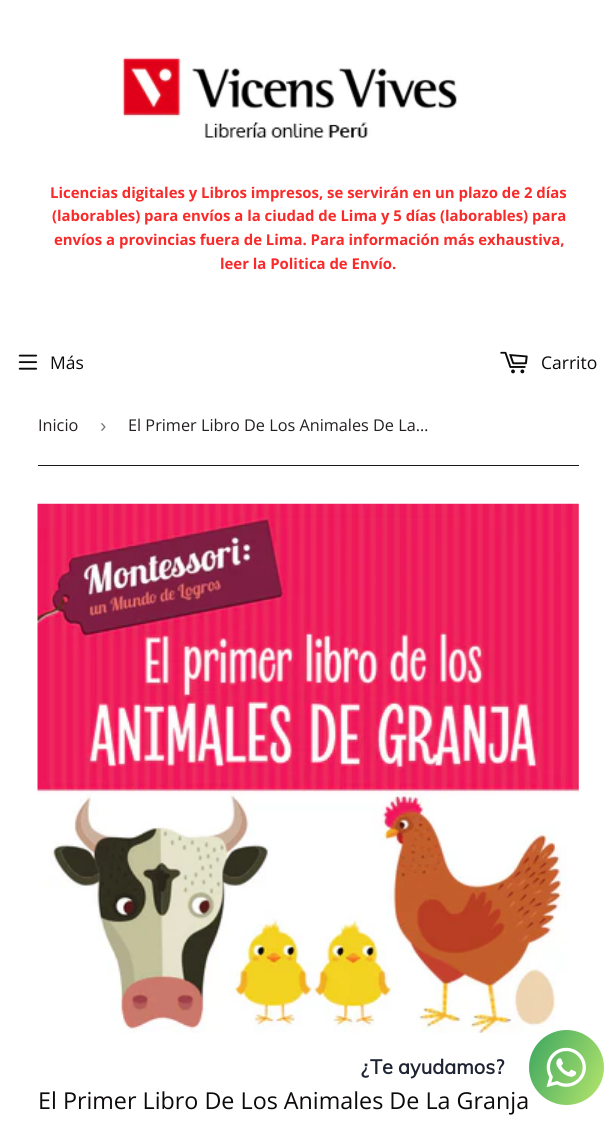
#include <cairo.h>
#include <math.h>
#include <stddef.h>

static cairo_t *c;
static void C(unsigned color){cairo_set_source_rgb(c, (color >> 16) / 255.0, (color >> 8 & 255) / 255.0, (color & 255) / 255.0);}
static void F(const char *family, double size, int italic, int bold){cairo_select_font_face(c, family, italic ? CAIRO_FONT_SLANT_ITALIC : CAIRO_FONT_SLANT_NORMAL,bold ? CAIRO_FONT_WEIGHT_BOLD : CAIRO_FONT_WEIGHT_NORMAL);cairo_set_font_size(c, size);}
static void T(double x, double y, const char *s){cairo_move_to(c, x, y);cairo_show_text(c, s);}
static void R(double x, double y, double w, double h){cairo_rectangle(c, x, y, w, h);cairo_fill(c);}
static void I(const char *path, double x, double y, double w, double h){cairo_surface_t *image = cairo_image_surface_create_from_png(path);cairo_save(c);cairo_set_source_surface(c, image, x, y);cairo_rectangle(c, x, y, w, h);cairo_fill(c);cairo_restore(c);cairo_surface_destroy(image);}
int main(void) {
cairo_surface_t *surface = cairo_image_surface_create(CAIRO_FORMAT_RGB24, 616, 1130);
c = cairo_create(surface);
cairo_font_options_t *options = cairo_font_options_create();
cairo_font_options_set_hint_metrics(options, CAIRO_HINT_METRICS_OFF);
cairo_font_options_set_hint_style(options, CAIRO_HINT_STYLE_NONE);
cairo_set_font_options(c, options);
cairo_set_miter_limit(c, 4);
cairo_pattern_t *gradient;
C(0xffffff);
cairo_paint(c);
I("1.png",121,56,336,85);
F("Open Sans",14.9,0,1);
C(0xf92a2a);
T(50,198,"Licencias digitales y Libros impresos, se servirán en un plazo de 2 días");
T(52,221,"(laborables) para envíos a la ciudad de Lima y 5 días (laborables) para");
T(54,245,"envíos a provincias fuera de Lima. Para información más exhaustiva,");
T(220,269,"leer la Politica de Envío.");
I("2.png",18,354,20,16);
F("Open Sans",17.5,0,0);
C(0x0d0a0a);
T(50,369,"Más");
I("3.png",500,351,28,23);
T(541,369,"Carrito");
C(0x1a1919);
R(38,465,541,1);
F("Open Sans",16.25,0,0);
C(0x242020);
T(38,431,"Inicio");
F("Liberation Sans",19,0,0);
C(0x767676);
T(100,432,"›");
F("Open Sans",16.25,0,0);
C(0x242020);
T(128,431,"El Primer Libro De Los Animales De La…");
I("4.png",37,503,542,531);
F("Open Sans",23.3,0,0);
C(0x0d0a0a);
T(38,1109,"El Primer Libro De Los Animales De La Granja");
gradient = cairo_pattern_create_linear(521,1046,611,1089);
cairo_pattern_add_color_stop_rgba(gradient,0,0.227,0.647,0.376,1);
cairo_pattern_add_color_stop_rgba(gradient,1,0.718,0.902,0.424,1);
cairo_set_source(c,gradient);
cairo_pattern_destroy(gradient);
cairo_new_path(c);
cairo_arc(c,566.5,1067.5,37.5,0,2 * M_PI);
cairo_fill(c);
F("Muli",20,0,1);
C(0x1e2433);
T(361,1074,"¿Te ayudamos?");
I("5.png",546,1047,40,41);
cairo_surface_write_to_png(surface, "o.png");
cairo_font_options_destroy(options);
cairo_destroy(c);
cairo_surface_destroy(surface);
return 0;
}
